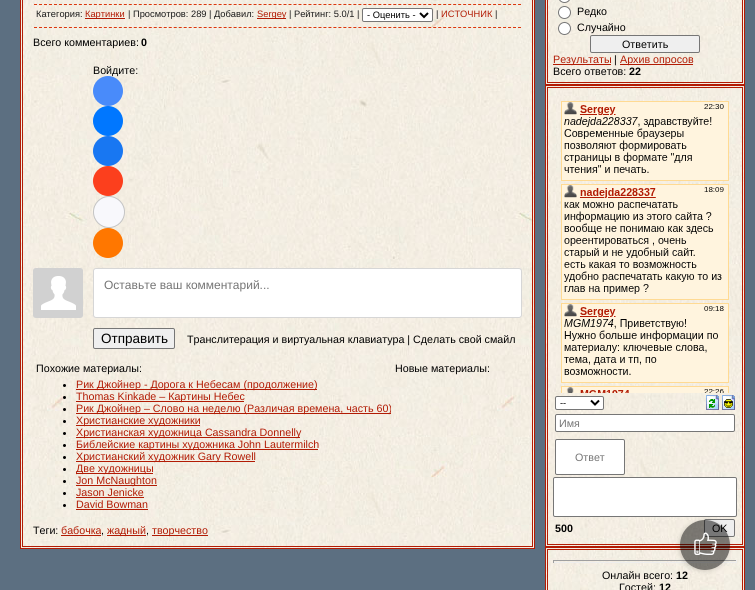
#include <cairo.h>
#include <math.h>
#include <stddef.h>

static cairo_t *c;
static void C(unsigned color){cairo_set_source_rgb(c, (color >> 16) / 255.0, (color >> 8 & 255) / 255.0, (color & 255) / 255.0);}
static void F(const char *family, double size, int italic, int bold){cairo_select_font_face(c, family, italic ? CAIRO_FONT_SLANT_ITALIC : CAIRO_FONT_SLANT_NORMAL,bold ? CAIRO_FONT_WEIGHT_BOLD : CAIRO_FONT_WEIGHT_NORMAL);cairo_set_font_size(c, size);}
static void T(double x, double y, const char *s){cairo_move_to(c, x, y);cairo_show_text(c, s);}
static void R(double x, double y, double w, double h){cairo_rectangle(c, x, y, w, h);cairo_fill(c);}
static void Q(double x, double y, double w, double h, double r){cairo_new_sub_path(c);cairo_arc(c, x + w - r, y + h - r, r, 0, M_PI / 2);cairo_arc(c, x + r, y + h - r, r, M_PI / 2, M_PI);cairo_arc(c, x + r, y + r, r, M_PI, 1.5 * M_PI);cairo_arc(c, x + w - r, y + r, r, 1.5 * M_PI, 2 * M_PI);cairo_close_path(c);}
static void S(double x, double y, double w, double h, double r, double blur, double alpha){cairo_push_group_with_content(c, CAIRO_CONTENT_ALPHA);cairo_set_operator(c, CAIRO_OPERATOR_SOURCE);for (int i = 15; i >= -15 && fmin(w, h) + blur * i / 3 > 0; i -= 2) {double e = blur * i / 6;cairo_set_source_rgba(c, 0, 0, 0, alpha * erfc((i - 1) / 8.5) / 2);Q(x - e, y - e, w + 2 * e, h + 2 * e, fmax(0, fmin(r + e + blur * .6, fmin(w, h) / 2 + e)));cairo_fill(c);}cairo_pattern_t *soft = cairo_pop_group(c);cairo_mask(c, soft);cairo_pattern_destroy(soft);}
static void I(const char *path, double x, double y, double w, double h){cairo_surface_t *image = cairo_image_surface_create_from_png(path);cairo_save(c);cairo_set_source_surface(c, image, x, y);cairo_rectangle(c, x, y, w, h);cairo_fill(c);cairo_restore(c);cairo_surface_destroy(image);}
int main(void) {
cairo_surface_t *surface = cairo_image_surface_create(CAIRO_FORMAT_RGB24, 755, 590);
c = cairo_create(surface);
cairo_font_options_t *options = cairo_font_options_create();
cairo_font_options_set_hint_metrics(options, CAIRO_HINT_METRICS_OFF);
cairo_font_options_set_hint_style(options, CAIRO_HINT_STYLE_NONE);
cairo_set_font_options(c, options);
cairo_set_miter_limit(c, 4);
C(0x5c6f81);
cairo_paint(c);
I("1.png",21,0,513,548);
cairo_rectangle(c,20.5,-.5,514,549);
C(0xb21b04);
cairo_set_line_width(c,1);
cairo_stroke(c);
cairo_rectangle(c,22.5,-.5,510,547);
cairo_stroke(c);
cairo_new_path(c);
cairo_move_to(c,34,4.5);
cairo_line_to(c,521,4.5);
C(0xdc370d);
cairo_set_dash(c,(double[]){3,1.99},2,0);
cairo_stroke(c);
cairo_new_path(c);
cairo_move_to(c,34,27.5);
cairo_line_to(c,521,27.5);
cairo_stroke(c);
F("Liberation Sans",9.3,0,0);
C(0x1a1a1a);
T(36,17,"Категория:");
C(0xb21b04);
R(85,18,40,1);
T(85,17,"Картинки");
C(0x1a1a1a);
T(128,17,"| Просмотров: 289 | Добавил:");
C(0xb21b04);
R(257,18,29,1);
T(257,17,"Sergey");
C(0x1a1a1a);
T(289,17,"| Рейтинг: 5.0/1 |");
C(0xffffff);
Q(362.5,8.5,70,13,1.5);
cairo_fill_preserve(c);
C(0x767676);
cairo_set_dash(c,NULL,0,0);
cairo_stroke(c);
cairo_new_path(c);
cairo_move_to(c,420,13);
cairo_line_to(c,424,17);
cairo_line_to(c,428,13);
C(0x000000);
cairo_set_line_width(c,2);
cairo_stroke(c);
T(367,18,"- Оценить -");
C(0x1a1a1a);
T(436,17,"|");
C(0xb21b04);
T(441,17,"ИСТОЧНИК");
C(0x1a1a1a);
T(495,17,"|");
F("Liberation Sans",10.7,0,0);
C(0x000000);
T(33,46,"Всего комментариев:");
F("Liberation Sans",10.7,0,1);
T(141,46,"0");
F("Liberation Sans",10.7,0,0);
T(93,74,"Войдите:");
C(0x498bfa);
cairo_new_path(c);
cairo_arc(c,108,91,15,0,2 * M_PI);
cairo_fill(c);
C(0x0077ff);
cairo_arc(c,108,121,15,0,2 * M_PI);
cairo_fill(c);
C(0x1877f2);
cairo_arc(c,108,151,15,0,2 * M_PI);
cairo_fill(c);
C(0xfc3f1d);
cairo_arc(c,108,181,15,0,2 * M_PI);
cairo_fill(c);
C(0xf8f8fc);
cairo_arc(c,109,212,15.5,0,2 * M_PI);
cairo_fill_preserve(c);
C(0xc4c4c4);
cairo_set_line_width(c,1);
cairo_stroke(c);
C(0xff7700);
cairo_arc(c,108,243,15,0,2 * M_PI);
cairo_fill(c);
I("2.png",33,268,50,50);
C(0xffffff);
Q(93.5,268.5,428,49,2.5);
cairo_fill_preserve(c);
C(0xd6d6d6);
cairo_stroke(c);
F("Liberation Sans",12,0,0);
C(0x757575);
T(104,289,"Оставьте ваш комментарий...");
C(0xefefef);
Q(93.5,328.5,81,20,1.5);
cairo_fill_preserve(c);
C(0x767676);
cairo_stroke(c);
F("Liberation Sans",13.5,0,0);
C(0x000000);
T(101,343,"Отправить");
F("Liberation Sans",10.7,0,0);
T(187,343,"Транслитерация и виртуальная клавиатура | Сделать свой смайл");
T(36,372,"Похожие материалы:");
T(395,372,"Новые материалы:");
cairo_new_path(c);
cairo_arc(c,64.5,385.5,1.5,0,2 * M_PI);
cairo_fill(c);
C(0xb21b04);
R(76,389,241,1);
T(76,388,"Рик Джойнер - Дорога к Небесам (продолжение)");
C(0x000000);
cairo_new_path(c);
cairo_arc(c,64.5,397.5,1.5,0,2 * M_PI);
cairo_fill(c);
C(0xb21b04);
R(76,401,168,1);
T(76,400,"Thomas Kinkade – Картины Небес");
C(0x000000);
cairo_new_path(c);
cairo_arc(c,64.5,409.5,1.5,0,2 * M_PI);
cairo_fill(c);
C(0xb21b04);
R(76,413,315,1);
T(76,412,"Рик Джойнер – Слово на неделю (Различая времена, часть 60)");
C(0x000000);
cairo_new_path(c);
cairo_arc(c,64.5,421.5,1.5,0,2 * M_PI);
cairo_fill(c);
C(0xb21b04);
R(76,425,124,1);
T(76,424,"Христианские художники");
C(0x000000);
cairo_new_path(c);
cairo_arc(c,64.5,433.5,1.5,0,2 * M_PI);
cairo_fill(c);
C(0xb21b04);
R(76,437,224,1);
T(76,436,"Христианская художница Cassandra Donnelly");
C(0x000000);
cairo_new_path(c);
cairo_arc(c,64.5,445.5,1.5,0,2 * M_PI);
cairo_fill(c);
C(0xb21b04);
R(76,449,242,1);
T(76,448,"Библейские картины художника John Lautermilch");
C(0x000000);
cairo_new_path(c);
cairo_arc(c,64.5,457.5,1.5,0,2 * M_PI);
cairo_fill(c);
C(0xb21b04);
R(76,461,179,1);
T(76,460,"Христианский художник Gary Rowell");
C(0x000000);
cairo_new_path(c);
cairo_arc(c,64.5,469.5,1.5,0,2 * M_PI);
cairo_fill(c);
C(0xb21b04);
R(76,473,77,1);
T(76,472,"Две художницы");
C(0x000000);
cairo_new_path(c);
cairo_arc(c,64.5,481.5,1.5,0,2 * M_PI);
cairo_fill(c);
C(0xb21b04);
R(76,485,81,1);
T(76,484,"Jon McNaughton");
C(0x000000);
cairo_new_path(c);
cairo_arc(c,64.5,493.5,1.5,0,2 * M_PI);
cairo_fill(c);
C(0xb21b04);
T(76,496,"Jason Jenicke");
R(76,497,68,1);
C(0x000000);
cairo_new_path(c);
cairo_arc(c,64.5,505.5,1.5,0,2 * M_PI);
cairo_fill(c);
C(0xb21b04);
T(76,508,"David Bowman");
R(76,509,72,1);
C(0x000000);
T(33,534,"Теги:");
C(0xb21b04);
T(61,534,"бабочка");
C(0x000000);
T(101,534,",");
C(0xb21b04);
R(61,535,40,1);
R(107,535,39,1);
T(107,534,"жадный");
C(0x000000);
T(146,534,",");
C(0xb21b04);
R(152,535,56,1);
T(152,534,"творчество");
I("5.png",546,86,198,460);
cairo_rectangle(c,545.5,85.5,199,461);
cairo_stroke(c);
cairo_rectangle(c,547.5,87.5,195,457);
cairo_stroke(c);
C(0xffffff);
Q(553.5,477.5,183,39,1.5);
cairo_fill_preserve(c);
C(0x767676);
cairo_stroke(c);
C(0xefefef);
Q(704.5,519.5,30,17,1.5);
cairo_fill_preserve(c);
C(0x767676);
cairo_stroke(c);
I("9.png",546,548,198,42);
cairo_rectangle(c,545.5,547.5,199,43);
C(0xb21b04);
cairo_stroke(c);
cairo_rectangle(c,547.5,549.5,195,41);
cairo_stroke(c);
C(0x9f9f9f);
R(553,560,184,1);
C(0xeeeeee);
R(736,560,1,3);
R(553,562,184,1);
cairo_save(c);
cairo_set_fill_rule(c,CAIRO_FILL_RULE_EVEN_ODD);
cairo_new_path(c);
cairo_move_to(c,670,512);
cairo_line_to(c,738,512);
cairo_line_to(c,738,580);
cairo_line_to(c,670,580);
cairo_close_path(c);
cairo_move_to(c,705,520);
cairo_curve_to(c,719,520,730,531,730,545);
cairo_curve_to(c,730,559,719,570,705,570);
cairo_curve_to(c,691,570,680,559,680,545);
cairo_curve_to(c,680,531,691,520,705,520);
cairo_close_path(c);
cairo_clip(c);
C(0x000000);
S(679,521,50,50,25,2.5,.15);
cairo_restore(c);
C(0x000000);
T(712,532,"OK");
cairo_set_source_rgba(c,0,0,0,0.5);
cairo_new_path(c);
cairo_arc(c,705,545,25,0,2 * M_PI);
cairo_fill(c);
I("3.png",694,532,23,23);
I("4.png",546,0,198,84);
cairo_rectangle(c,545.5,-.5,199,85);
C(0xb21b04);
cairo_stroke(c);
cairo_rectangle(c,547.5,-.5,195,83);
cairo_stroke(c);
C(0xffffff);
Q(558.5,-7.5,12,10,6);
cairo_fill_preserve(c);
C(0x767676);
cairo_stroke(c);
C(0xffffff);
cairo_arc(c,564.5,12.5,6,0,2 * M_PI);
cairo_fill_preserve(c);
C(0x767676);
cairo_stroke(c);
C(0x000000);
T(577,15,"Редко");
C(0xffffff);
cairo_new_path(c);
cairo_arc(c,564.5,28.5,6,0,2 * M_PI);
cairo_fill_preserve(c);
C(0x767676);
cairo_stroke(c);
C(0x000000);
T(577,31,"Случайно");
C(0xefefef);
Q(590.5,35.5,109,17,1.5);
cairo_fill_preserve(c);
C(0x767676);
cairo_stroke(c);
C(0x000000);
T(622,48,"Ответить");
C(0xb21b04);
R(553,64,58,1);
T(553,63,"Результаты");
C(0x000000);
T(614,63,"|");
C(0xb21b04);
R(620,64,73,1);
T(620,63,"Архив опросов");
C(0x000000);
T(553,75,"Всего ответов:");
F("Liberation Sans",10.7,0,1);
T(629,75,"22");
I("6.png",561,101,168,292);
C(0xffffff);
Q(555.5,396.5,48,13,1.5);
cairo_fill_preserve(c);
C(0x767676);
cairo_stroke(c);
cairo_new_path(c);
cairo_move_to(c,591,400.5);
cairo_line_to(c,595,404.5);
cairo_line_to(c,599,400.5);
C(0x000000);
cairo_set_line_width(c,2);
cairo_stroke(c);
F("Liberation Sans",9.3,0,0);
T(560,406,"--");
I("7.png",706,395,13,15);
I("8.png",722,395,13,15);
C(0xffffff);
Q(555.5,414.5,179,17,1.5);
cairo_fill_preserve(c);
C(0x767676);
cairo_set_line_width(c,1);
cairo_stroke(c);
F("Liberation Sans",10.7,0,0);
C(0x757575);
T(559,427,"Имя");
C(0xffffff);
Q(555.5,439.5,69,35,1.5);
cairo_fill_preserve(c);
C(0x767676);
cairo_stroke(c);
C(0x757575);
T(575,461,"Ответ");
F("Liberation Sans",10.7,0,1);
C(0x000000);
T(555,532,"500");
C(0x9f9f9f);
R(553,560,1,3);
F("Liberation Sans",10.7,0,0);
C(0x000000);
T(602,579,"Онлайн всего:");
F("Liberation Sans",10.7,0,1);
T(676,579,"12");
F("Liberation Sans",10.7,0,0);
T(619,591,"Гостей:");
F("Liberation Sans",10.7,0,1);
T(659,591,"12");
cairo_surface_write_to_png(surface, "o.png");
cairo_font_options_destroy(options);
cairo_destroy(c);
cairo_surface_destroy(surface);
return 0;
}
